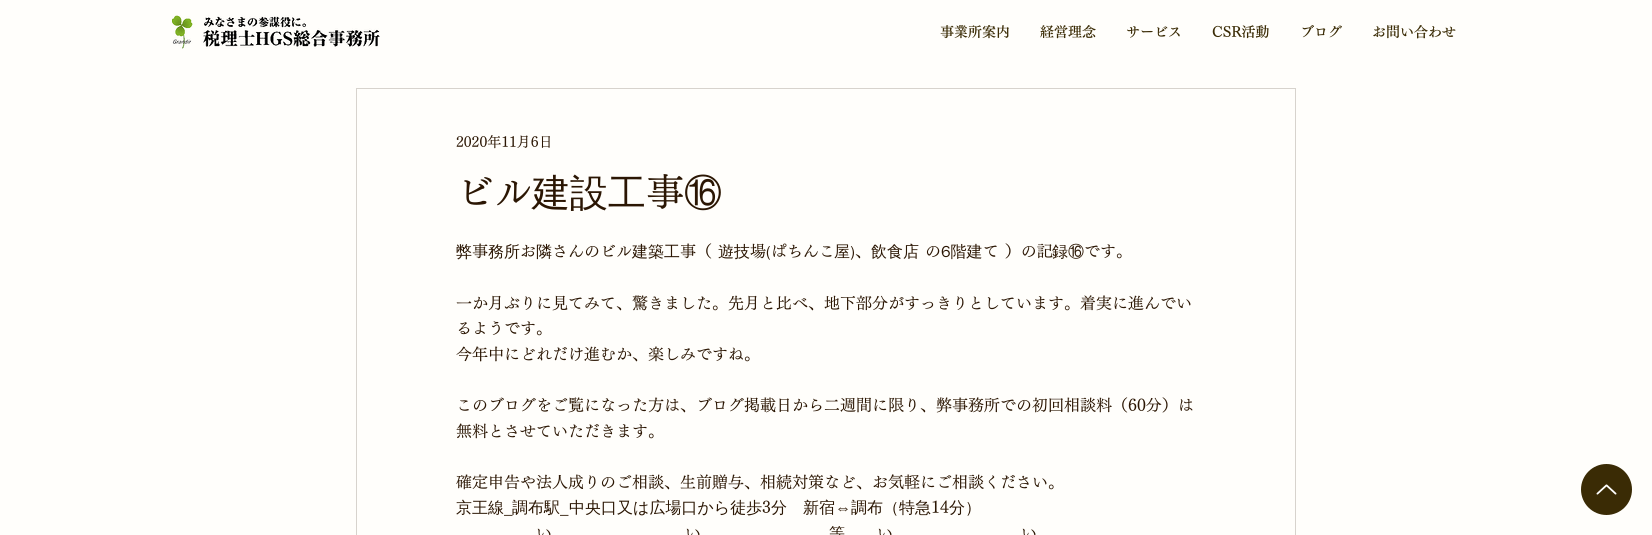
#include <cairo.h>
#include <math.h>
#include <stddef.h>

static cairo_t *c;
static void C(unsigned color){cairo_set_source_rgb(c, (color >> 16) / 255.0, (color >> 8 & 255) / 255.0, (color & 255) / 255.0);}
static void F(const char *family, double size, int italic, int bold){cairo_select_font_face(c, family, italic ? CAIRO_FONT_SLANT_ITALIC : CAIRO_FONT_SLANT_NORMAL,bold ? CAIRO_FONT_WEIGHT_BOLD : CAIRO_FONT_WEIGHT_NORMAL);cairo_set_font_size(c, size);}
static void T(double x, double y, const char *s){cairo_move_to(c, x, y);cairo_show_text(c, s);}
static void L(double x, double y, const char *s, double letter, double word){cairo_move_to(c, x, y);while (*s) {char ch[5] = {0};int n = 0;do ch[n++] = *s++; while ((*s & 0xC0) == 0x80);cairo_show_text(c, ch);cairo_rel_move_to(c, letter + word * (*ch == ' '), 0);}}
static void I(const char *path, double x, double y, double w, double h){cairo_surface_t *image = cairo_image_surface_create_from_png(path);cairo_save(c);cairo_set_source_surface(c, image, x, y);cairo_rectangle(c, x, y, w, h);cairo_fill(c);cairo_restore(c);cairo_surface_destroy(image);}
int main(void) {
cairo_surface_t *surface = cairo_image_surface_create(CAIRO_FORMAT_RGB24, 1652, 535);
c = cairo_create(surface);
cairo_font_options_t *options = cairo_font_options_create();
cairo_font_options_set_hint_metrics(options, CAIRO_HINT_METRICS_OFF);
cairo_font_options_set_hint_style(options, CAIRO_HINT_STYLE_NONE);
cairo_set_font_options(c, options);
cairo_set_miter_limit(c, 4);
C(0xfffefb);
cairo_paint(c);
I("1.png",172,15,208,34);
F("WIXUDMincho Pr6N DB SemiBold",14,0,0);
C(0x3a2b05);
T(940,37,"事業所案内");
T(1040,37,"経営理念");
T(1126,37,"サービス");
T(1212,37,"CSR活動");
T(1300,37,"ブログ");
T(1372,37,"お問い合わせ");
cairo_rectangle(c,356.5,88.5,939,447);
C(0xd7d3cd);
cairo_set_line_width(c,1);
cairo_stroke(c);
F("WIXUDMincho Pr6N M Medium",14,0,0);
C(0x2b1603);
T(456,147,"2020年11月6日");
F("WIXUDMincho Pr6N M Medium",38,0,0);
T(456,206,"ビル");
F("WenQuanYi Zen Hei Medium",38,0,0);
T(532,206,"建設工");
F("WIXUDMincho Pr6N M Medium",38,0,0);
T(646,206,"事");
F("WenQuanYi Zen Hei Medium",38,0,0);
T(684,206,"⑯");
F("WenQuanYi Zen Hei Medium",16,0,0);
T(456,257,"弊");
F("WIXUDMincho Pr6N M Medium",16,0,0);
T(472,257,"事");
F("WenQuanYi Zen Hei Medium",16,0,0);
T(488,257,"務所");
F("WIXUDMincho Pr6N M Medium",16,0,0);
T(520,257,"お");
F("WenQuanYi Zen Hei Medium",16,0,0);
T(536,257,"隣");
F("WIXUDMincho Pr6N M Medium",16,0,0);
T(552,257,"さんのビル");
F("WenQuanYi Zen Hei Medium",16,0,0);
T(632,257,"建築工");
F("WIXUDMincho Pr6N M Medium",16,0,0);
T(680,257,"事（");
F("WenQuanYi Zen Hei Medium",16,0,0);
T(718,257,"遊技");
F("WIXUDMincho Pr6N M Medium",16,0,0);
T(750,257,"場 ぱちんこ");
F("WenQuanYi Zen Hei Medium",16,0,0);
T(834,257,"屋)");
T(871,257,"飲食店");
T(941,257,"6階建");
F("WIXUDMincho Pr6N M Medium",16,0,0);
L(983,257,"て ）の記",0,1);
F("WenQuanYi Zen Hei Medium",16,0,0);
T(1052,257,"録⑯");
F("WIXUDMincho Pr6N M Medium",16,0,0);
T(1084,257,"です。");
F("WenQuanYi Zen Hei Medium",16,0,0);
T(766,257,"(");
F("WIXUDMincho Pr6N M Medium",16,0,0);
T(855,257,"、");
T(925,257,"の");
T(456,309,"一か月ぶりに見てみて、驚きました。先月と比べ、地下部分がすっきりとしています。着実に進んでい");
T(456,334,"るようです。");
T(456,360,"今年中にどれだけ進むか、楽しみですね。");
T(456,411,"このブログをご覧になった方は、ブログ掲載日から二週間に限り、弊事務所での初回相談料（60分）は");
T(456,437,"無料とさせていただきます。");
T(456,488,"確定申告や法人成りのご相談、生前贈与、相続対策など、お気軽にご相談ください。");
F("WenQuanYi Zen Hei Medium",16,0,0);
T(456,513,"京王線");
F("WIXUDMincho Pr6N M Medium",16,0,0);
T(504,513,"_");
F("WenQuanYi Zen Hei Medium",16,0,0);
T(512,513,"調布駅");
T(569,513,"中央口又は広場口から徒歩");
F("WIXUDMincho Pr6N M Medium",16,0,0);
T(762,513,"3");
F("WenQuanYi Zen Hei Medium",16,0,0);
T(771,513,"分　新宿");
F("Liberation Serif",16,0,0);
T(835,513,"⇔");
F("WenQuanYi Zen Hei Medium",16,0,0);
T(851,513,"調布（特急");
F("WIXUDMincho Pr6N M Medium",16,0,0);
T(931,513,"14");
F("WenQuanYi Zen Hei Medium",16,0,0);
T(949,513,"分）");
F("WIXUDMincho Pr6N M Medium",16,0,0);
T(560,513,"_");
T(536,539,"い");
T(685,539,"い");
F("WenQuanYi Zen Hei Medium",16,0,0);
T(829,539,"等");
F("WIXUDMincho Pr6N M Medium",16,0,0);
T(877,539,"い");
T(1021,539,"い");
C(0x3a2b05);
cairo_new_path(c);
cairo_arc(c,1606.5,489.5,25.5,0,2 * M_PI);
cairo_fill(c);
I("2.png",1596,484,21,11);
cairo_surface_write_to_png(surface, "o.png");
cairo_font_options_destroy(options);
cairo_destroy(c);
cairo_surface_destroy(surface);
return 0;
}
